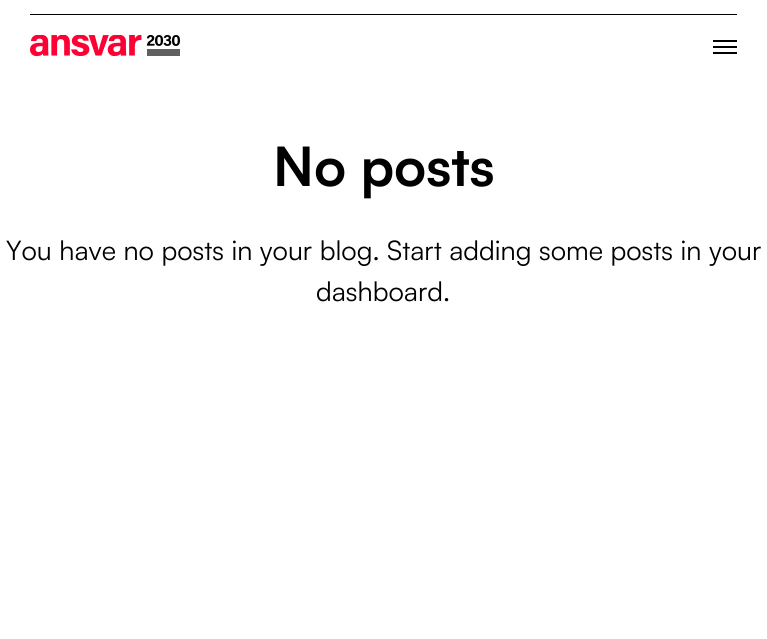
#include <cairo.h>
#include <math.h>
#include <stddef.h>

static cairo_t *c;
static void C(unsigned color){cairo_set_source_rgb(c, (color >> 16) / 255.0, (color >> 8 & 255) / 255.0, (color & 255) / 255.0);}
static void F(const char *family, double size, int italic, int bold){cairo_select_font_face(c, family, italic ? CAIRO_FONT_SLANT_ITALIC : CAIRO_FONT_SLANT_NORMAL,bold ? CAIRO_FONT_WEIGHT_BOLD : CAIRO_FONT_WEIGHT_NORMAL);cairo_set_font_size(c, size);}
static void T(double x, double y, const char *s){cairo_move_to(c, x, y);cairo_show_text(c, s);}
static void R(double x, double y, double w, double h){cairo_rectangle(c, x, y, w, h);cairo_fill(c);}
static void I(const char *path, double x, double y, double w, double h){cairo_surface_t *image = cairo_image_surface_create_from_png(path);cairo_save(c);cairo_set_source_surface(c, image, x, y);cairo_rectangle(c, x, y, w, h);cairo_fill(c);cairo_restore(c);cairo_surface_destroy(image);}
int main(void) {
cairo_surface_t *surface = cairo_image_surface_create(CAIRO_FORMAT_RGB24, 767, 639);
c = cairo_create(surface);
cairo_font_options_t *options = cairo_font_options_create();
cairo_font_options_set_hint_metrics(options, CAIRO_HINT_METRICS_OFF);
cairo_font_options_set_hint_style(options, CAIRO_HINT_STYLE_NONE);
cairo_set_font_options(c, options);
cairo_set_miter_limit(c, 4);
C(0xffffff);
cairo_paint(c);
C(0x000000);
R(30,14,707,1);
I("1.png",30,35,150,22);
R(713,46,24,2);
R(713,40,24,2);
R(713,52,24,2);
F("Satoshi",54,0,1);
T(273,186,"No posts");
F("Satoshi",27,0,0);
T(6,260,"You have no posts in your blog. Start adding some posts in your");
T(316,301,"dashboard.");
cairo_surface_write_to_png(surface, "o.png");
cairo_font_options_destroy(options);
cairo_destroy(c);
cairo_surface_destroy(surface);
return 0;
}
